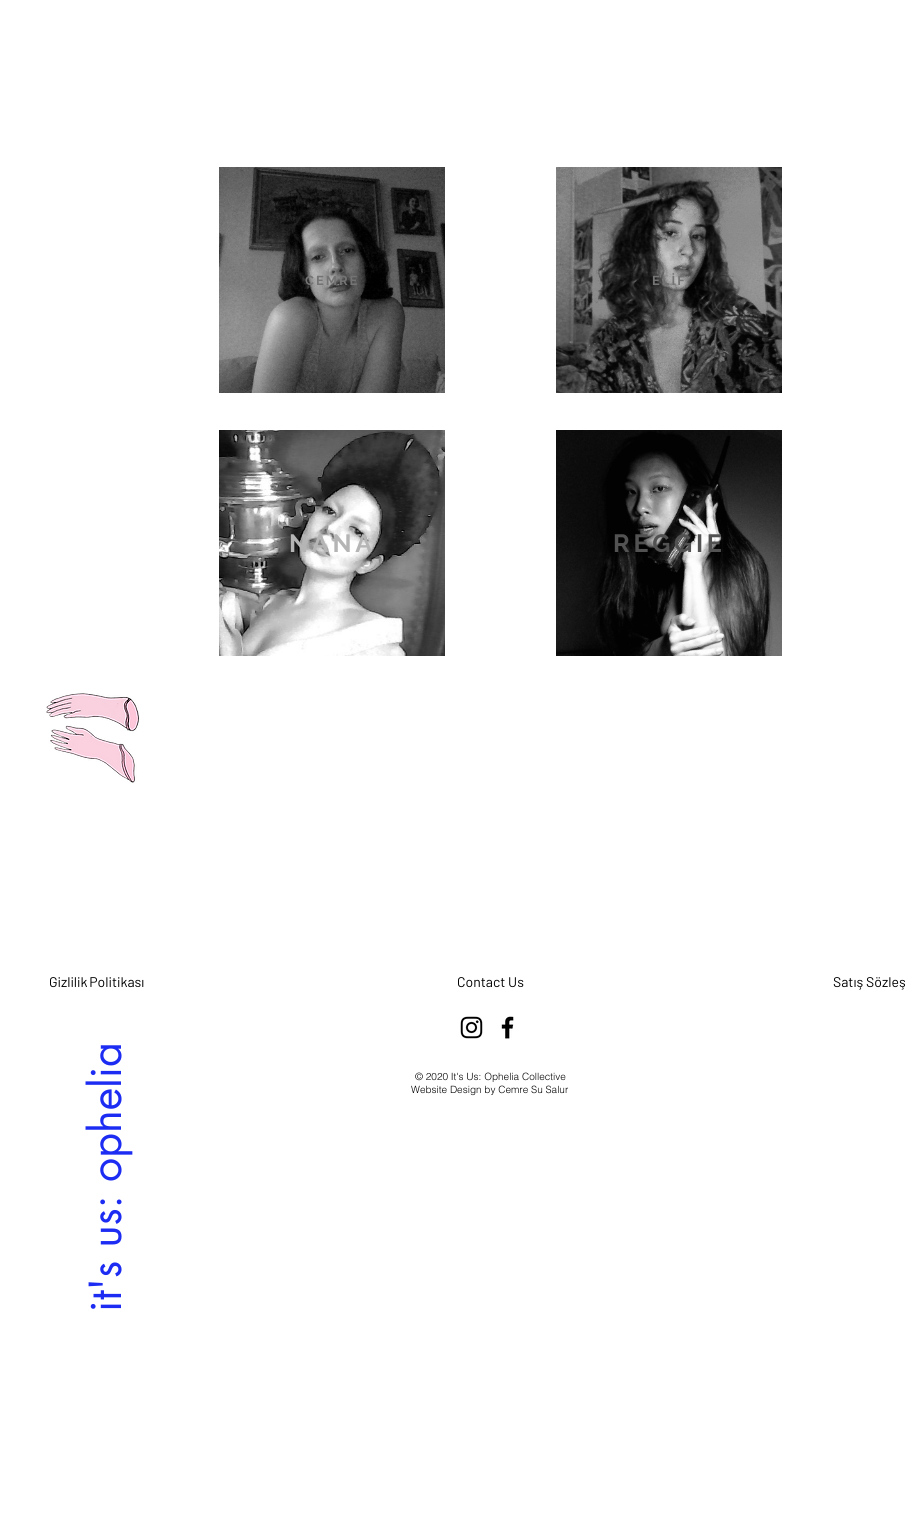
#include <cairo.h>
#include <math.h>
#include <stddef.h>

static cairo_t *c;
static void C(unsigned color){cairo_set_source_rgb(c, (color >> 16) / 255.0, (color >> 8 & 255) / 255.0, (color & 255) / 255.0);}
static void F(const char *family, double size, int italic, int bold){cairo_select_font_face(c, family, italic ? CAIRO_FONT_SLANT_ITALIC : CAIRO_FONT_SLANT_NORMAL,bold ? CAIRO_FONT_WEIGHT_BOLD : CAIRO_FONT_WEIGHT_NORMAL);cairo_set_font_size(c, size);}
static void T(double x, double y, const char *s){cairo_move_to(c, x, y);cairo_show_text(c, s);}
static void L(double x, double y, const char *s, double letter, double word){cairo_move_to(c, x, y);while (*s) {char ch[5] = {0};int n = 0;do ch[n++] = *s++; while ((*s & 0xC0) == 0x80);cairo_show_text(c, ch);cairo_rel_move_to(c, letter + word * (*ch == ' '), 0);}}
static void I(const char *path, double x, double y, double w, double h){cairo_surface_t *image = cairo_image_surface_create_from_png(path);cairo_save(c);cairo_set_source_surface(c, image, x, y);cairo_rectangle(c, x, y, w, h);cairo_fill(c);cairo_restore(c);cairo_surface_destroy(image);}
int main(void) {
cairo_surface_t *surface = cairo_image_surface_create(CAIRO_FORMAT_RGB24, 909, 1514);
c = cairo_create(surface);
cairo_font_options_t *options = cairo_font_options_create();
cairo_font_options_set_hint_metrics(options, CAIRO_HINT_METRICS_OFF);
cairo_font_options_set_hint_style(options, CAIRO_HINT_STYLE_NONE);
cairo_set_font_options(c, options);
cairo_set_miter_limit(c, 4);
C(0xffffff);
cairo_paint(c);
I("1.png",219,167,226,226);
F("Raleway",13,0,1);
C(0x747474);
L(305,285,"CEMRE",2,0);
I("2.png",556,167,226,226);
L(652,285,"ELİF",2,0);
I("3.png",219,430,226,226);
F("Raleway",25,0,1);
C(0xb5b5b5);
L(289,552,"NANA",3.75,0);
I("4.png",556,430,226,226);
C(0x525252);
L(613,552,"REGGIE",3.75,0);
I("5.png",46,693,93,90);
F("Barlow",14,0,0);
C(0x000000);
L(49,987,"Gizlilik Politikası",0,-1);
T(457,987,"Contact Us");
T(833,987,"Satış Sözleş");
I("6.png",460,1016,23,23);
I("7.png",501,1016,13,23);
F("helvetica Light",10,0,0);
T(415,1080,"© 2020 It's Us: Ophelia Collective");
T(411,1093,"Website Design by Cemre Su Salur");
F("futura",43,0,0);
C(0x1d2cf3);
cairo_save(c);
cairo_translate(c,121,1312);
cairo_rotate(c,-90 * M_PI / 180);
T(0,0,"it's us: ophelia");
cairo_restore(c);
cairo_surface_write_to_png(surface, "o.png");
cairo_font_options_destroy(options);
cairo_destroy(c);
cairo_surface_destroy(surface);
return 0;
}
